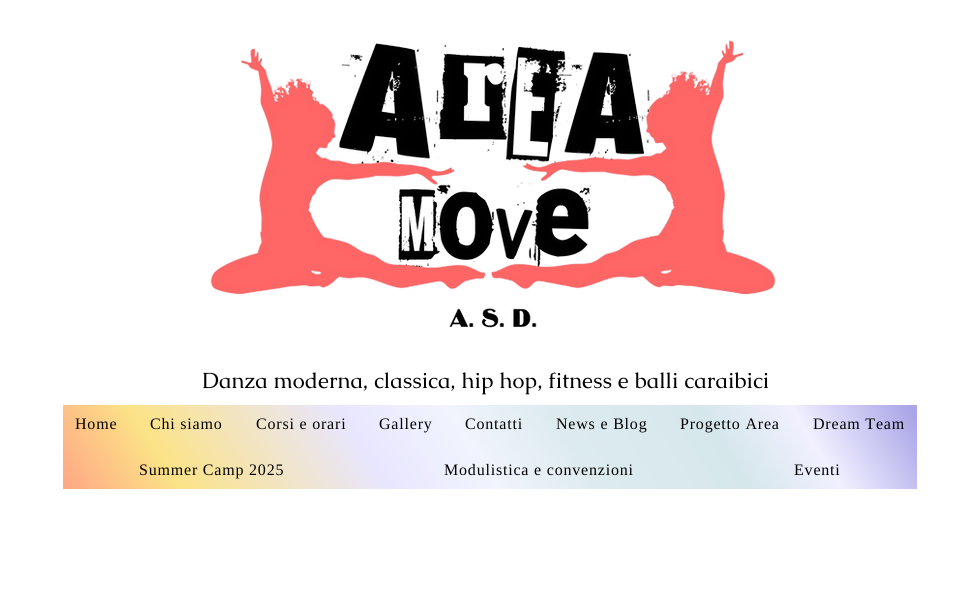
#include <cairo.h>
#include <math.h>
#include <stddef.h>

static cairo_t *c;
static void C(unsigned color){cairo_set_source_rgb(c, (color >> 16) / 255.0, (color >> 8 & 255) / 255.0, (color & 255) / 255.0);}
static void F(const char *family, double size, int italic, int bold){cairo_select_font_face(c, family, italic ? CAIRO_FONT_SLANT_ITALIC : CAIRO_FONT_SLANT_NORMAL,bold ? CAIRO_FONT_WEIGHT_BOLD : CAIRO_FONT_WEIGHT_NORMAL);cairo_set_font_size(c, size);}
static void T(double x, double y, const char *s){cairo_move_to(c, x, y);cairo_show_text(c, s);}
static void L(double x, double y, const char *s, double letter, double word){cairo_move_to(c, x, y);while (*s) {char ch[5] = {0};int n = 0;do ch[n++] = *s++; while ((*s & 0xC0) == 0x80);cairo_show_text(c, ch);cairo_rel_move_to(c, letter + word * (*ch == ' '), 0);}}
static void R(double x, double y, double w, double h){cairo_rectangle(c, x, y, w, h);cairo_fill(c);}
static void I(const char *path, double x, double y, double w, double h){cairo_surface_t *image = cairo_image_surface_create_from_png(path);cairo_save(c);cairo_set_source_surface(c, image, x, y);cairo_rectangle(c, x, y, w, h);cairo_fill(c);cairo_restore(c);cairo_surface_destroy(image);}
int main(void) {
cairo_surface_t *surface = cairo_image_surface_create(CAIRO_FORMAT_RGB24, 972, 609);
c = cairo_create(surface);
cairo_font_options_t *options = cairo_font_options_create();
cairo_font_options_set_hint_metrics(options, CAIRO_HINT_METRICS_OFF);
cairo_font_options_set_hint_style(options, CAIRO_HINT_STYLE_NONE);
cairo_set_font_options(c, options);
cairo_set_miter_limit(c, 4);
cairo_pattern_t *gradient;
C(0xffffff);
cairo_paint(c);
I("1.png",210,40,566,288);
F("Caudex",22,0,0);
C(0x000000);
T(202,388,"Danza moderna, classica, hip hop, fitness e balli caraibici");
gradient = cairo_pattern_create_linear(164,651,816,243);
cairo_pattern_add_color_stop_rgba(gradient,0,1,0.651,0.522,1);
cairo_pattern_add_color_stop_rgba(gradient,.13,0.988,0.89,0.529,1);
cairo_pattern_add_color_stop_rgba(gradient,.36,0.91,0.902,1,1);
cairo_pattern_add_color_stop_rgba(gradient,.48,0.945,0.957,0.992,1);
cairo_pattern_add_color_stop_rgba(gradient,.59,0.867,0.922,0.937,1);
cairo_pattern_add_color_stop_rgba(gradient,.76,0.839,0.906,0.925,1);
cairo_pattern_add_color_stop_rgba(gradient,.86,0.945,0.941,1,1);
cairo_pattern_add_color_stop_rgba(gradient,.99,0.663,0.647,0.91,1);
cairo_set_source(c,gradient);
cairo_pattern_destroy(gradient);
R(63,405,854,84);
F("Liberation Serif",16,0,0);
C(0x000000);
L(75,429,"Home",.8,0);
L(150,429,"Chi siamo",.8,0);
L(256,429,"Corsi e orari",.8,0);
L(379,429,"Gallery",.8,0);
L(465,429,"Contatti",.8,0);
L(556,429,"News e Blog",.8,0);
L(680,429,"Progetto Area",.8,0);
L(813,429,"Dream Team",.8,0);
L(139,475,"Summer Camp 2025",.8,0);
L(444,475,"Modulistica e convenzioni",.8,0);
L(794,475,"Eventi",.8,0);
cairo_surface_write_to_png(surface, "o.png");
cairo_font_options_destroy(options);
cairo_destroy(c);
cairo_surface_destroy(surface);
return 0;
}
